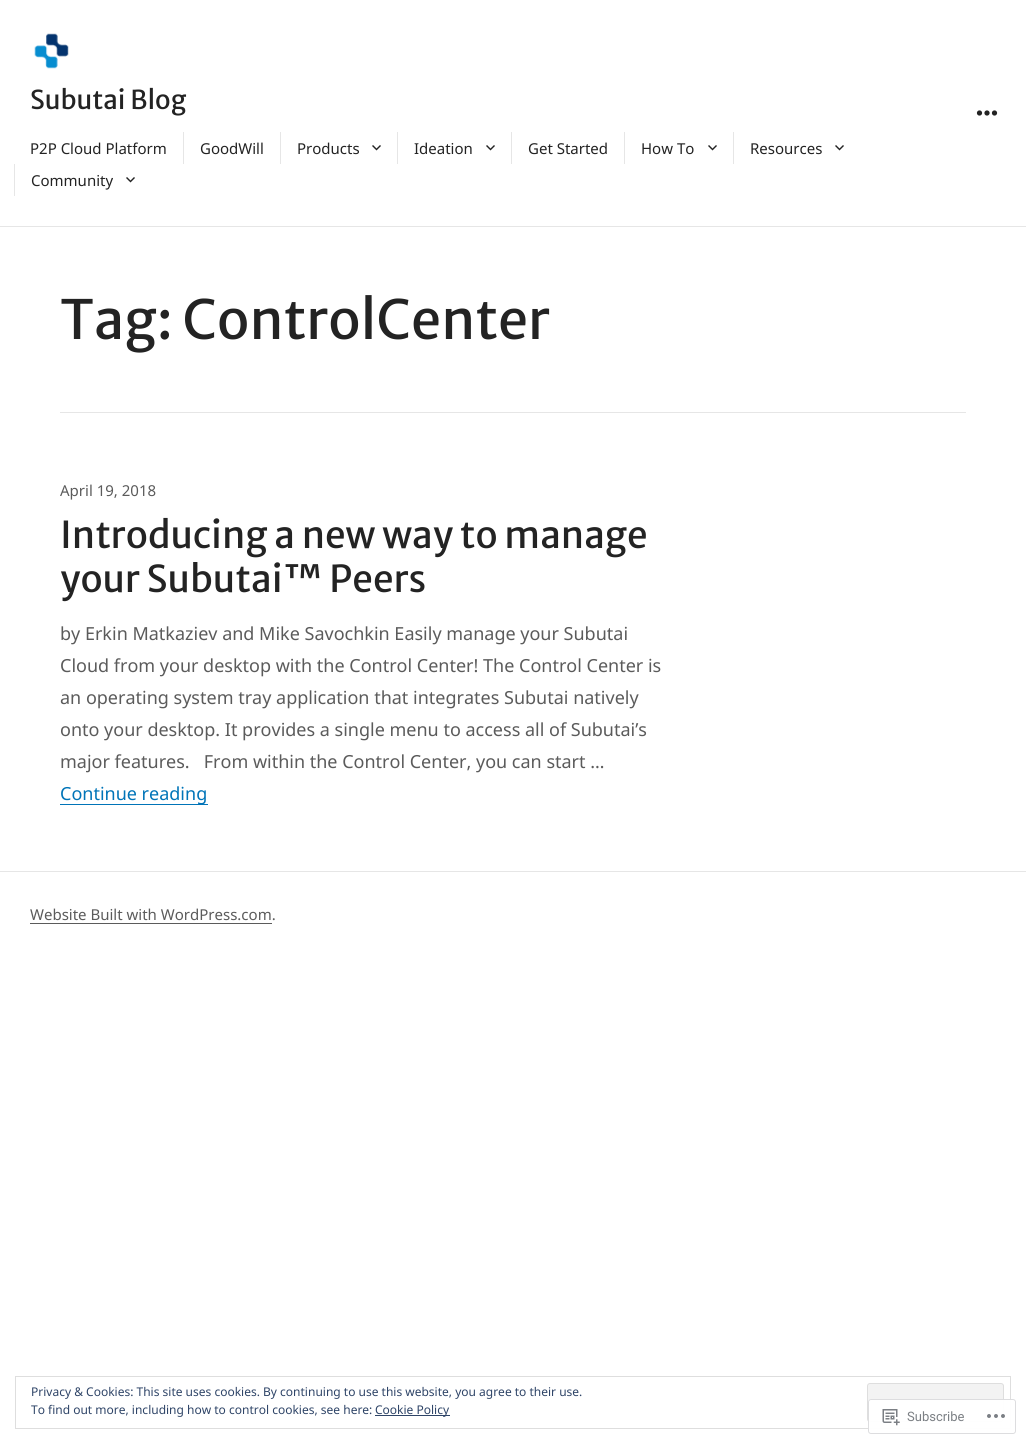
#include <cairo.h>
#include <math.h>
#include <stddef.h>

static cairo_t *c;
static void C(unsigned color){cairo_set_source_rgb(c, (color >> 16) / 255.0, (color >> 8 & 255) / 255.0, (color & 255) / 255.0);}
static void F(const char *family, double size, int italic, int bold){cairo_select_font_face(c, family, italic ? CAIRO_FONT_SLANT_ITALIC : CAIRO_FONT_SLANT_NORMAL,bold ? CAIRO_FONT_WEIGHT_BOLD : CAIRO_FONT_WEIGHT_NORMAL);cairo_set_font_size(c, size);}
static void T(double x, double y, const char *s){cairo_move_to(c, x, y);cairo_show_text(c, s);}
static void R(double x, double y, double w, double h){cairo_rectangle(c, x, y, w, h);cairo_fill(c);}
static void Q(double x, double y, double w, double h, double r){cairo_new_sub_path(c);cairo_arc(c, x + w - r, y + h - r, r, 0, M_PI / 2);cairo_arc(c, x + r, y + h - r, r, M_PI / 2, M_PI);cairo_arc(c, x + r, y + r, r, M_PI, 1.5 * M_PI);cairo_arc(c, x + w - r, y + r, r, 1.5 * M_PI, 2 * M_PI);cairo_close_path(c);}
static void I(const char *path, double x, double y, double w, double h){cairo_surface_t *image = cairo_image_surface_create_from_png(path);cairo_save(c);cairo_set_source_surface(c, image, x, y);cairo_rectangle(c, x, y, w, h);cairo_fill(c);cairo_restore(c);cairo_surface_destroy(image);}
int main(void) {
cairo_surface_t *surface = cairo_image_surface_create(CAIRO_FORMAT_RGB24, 1026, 1444);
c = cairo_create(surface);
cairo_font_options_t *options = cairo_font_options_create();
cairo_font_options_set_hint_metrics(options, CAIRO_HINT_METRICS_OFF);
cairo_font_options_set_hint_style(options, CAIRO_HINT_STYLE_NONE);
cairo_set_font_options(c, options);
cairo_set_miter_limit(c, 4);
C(0xffffff);
cairo_paint(c);
C(0xe6e6e6);
R(0,226,1026,1);
I("1.png",34,33,35,36);
F("Merriweather Sans",26,0,0);
C(0x232323);
T(30,109,"Subutai Blog");
I("2.png",976,110,22,6);
F("Noto Sans",15,0,0);
T(30,154,"P2P Cloud Platform");
C(0xe6e6e6);
R(183,132,1,32);
C(0x232323);
T(200,154,"GoodWill");
C(0xe6e6e6);
R(280,132,1,32);
C(0x232323);
T(297,154,"Products");
I("3.png",372,145,9,6);
C(0xe6e6e6);
R(397,132,1,32);
C(0x232323);
T(414,154,"Ideation");
I("3.png",486,145,9,6);
C(0xe6e6e6);
R(511,132,1,32);
C(0x232323);
T(528,154,"Get Started");
C(0xe6e6e6);
R(624,132,1,32);
C(0x232323);
T(641,154,"How To");
I("3.png",708,145,9,6);
C(0xe6e6e6);
R(733,132,1,32);
C(0x232323);
T(750,154,"Resources");
I("3.png",835,145,9,6);
C(0xe6e6e6);
R(14,164,1,32);
C(0x232323);
T(31,186,"Community");
I("3.png",126,177,9,6);
C(0xe6e6e6);
R(60,412,906,1);
F("Merriweather Sans",54,0,0);
C(0x232323);
T(60,339,"Tag: ControlCenter");
F("Noto Sans",15,0,0);
C(0x5b5b5b);
T(60,496,"April 19, 2018");
F("Merriweather Sans",37,0,0);
C(0x232323);
T(60,548,"Introducing a new way to manage");
T(60,592,"your Subutai™ Peers");
F("Noto Sans",18,0,0);
C(0x5b5b5b);
T(60,640,"by Erkin Matkaziev and Mike Savochkin Easily manage your Subutai");
T(60,672,"Cloud from your desktop with the Control Center! The Control Center is");
T(60,704,"an operating system tray application that integrates Subutai natively");
T(60,736,"onto your desktop. It provides a single menu to access all of Subutai’s");
T(60,768,"major features.   From within the Control Center, you can start …");
C(0x0074b8);
R(60,804,148,1);
T(60,800,"Continue reading");
C(0xe6e6e6);
R(0,871,1026,1);
F("Noto Sans",15,0,0);
C(0x5b5b5b);
T(30,920,"Website Built with WordPress.com.");
R(30,923,242,1);
cairo_rectangle(c,15.5,1376.5,995,52);
C(0xdedede);
cairo_set_line_width(c,1);
cairo_stroke(c);
F("Noto Sans",12,0,0);
C(0x2e4467);
T(31,1396,"Privacy & Cookies: This site uses cookies. By continuing to use this website, you agree to their use.");
C(0xf3f3f3);
Q(867.5,1383.5,136,38,2.5);
cairo_fill_preserve(c);
C(0xdedede);
cairo_stroke(c);
C(0x2e4467);
T(31,1414,"To find out more, including how to control cookies, see here:");
R(375,1415,75,1);
T(375,1414,"Cookie Policy");
cairo_set_source_rgba(c,1,1,1,0.98);
Q(868,1399,148,35,3);
cairo_fill(c);
Q(868.5,1399.5,147,34,2.5);
cairo_set_source_rgba(c,0.863,0.863,0.871,0.98);
cairo_stroke(c);
I("4.png",882,1409,18,17);
F("Roboto",13,0,0);
C(0x7b7f84);
T(907,1421,"Subscribe");
I("5.png",987,1414,18,4);
cairo_surface_write_to_png(surface, "o.png");
cairo_font_options_destroy(options);
cairo_destroy(c);
cairo_surface_destroy(surface);
return 0;
}
